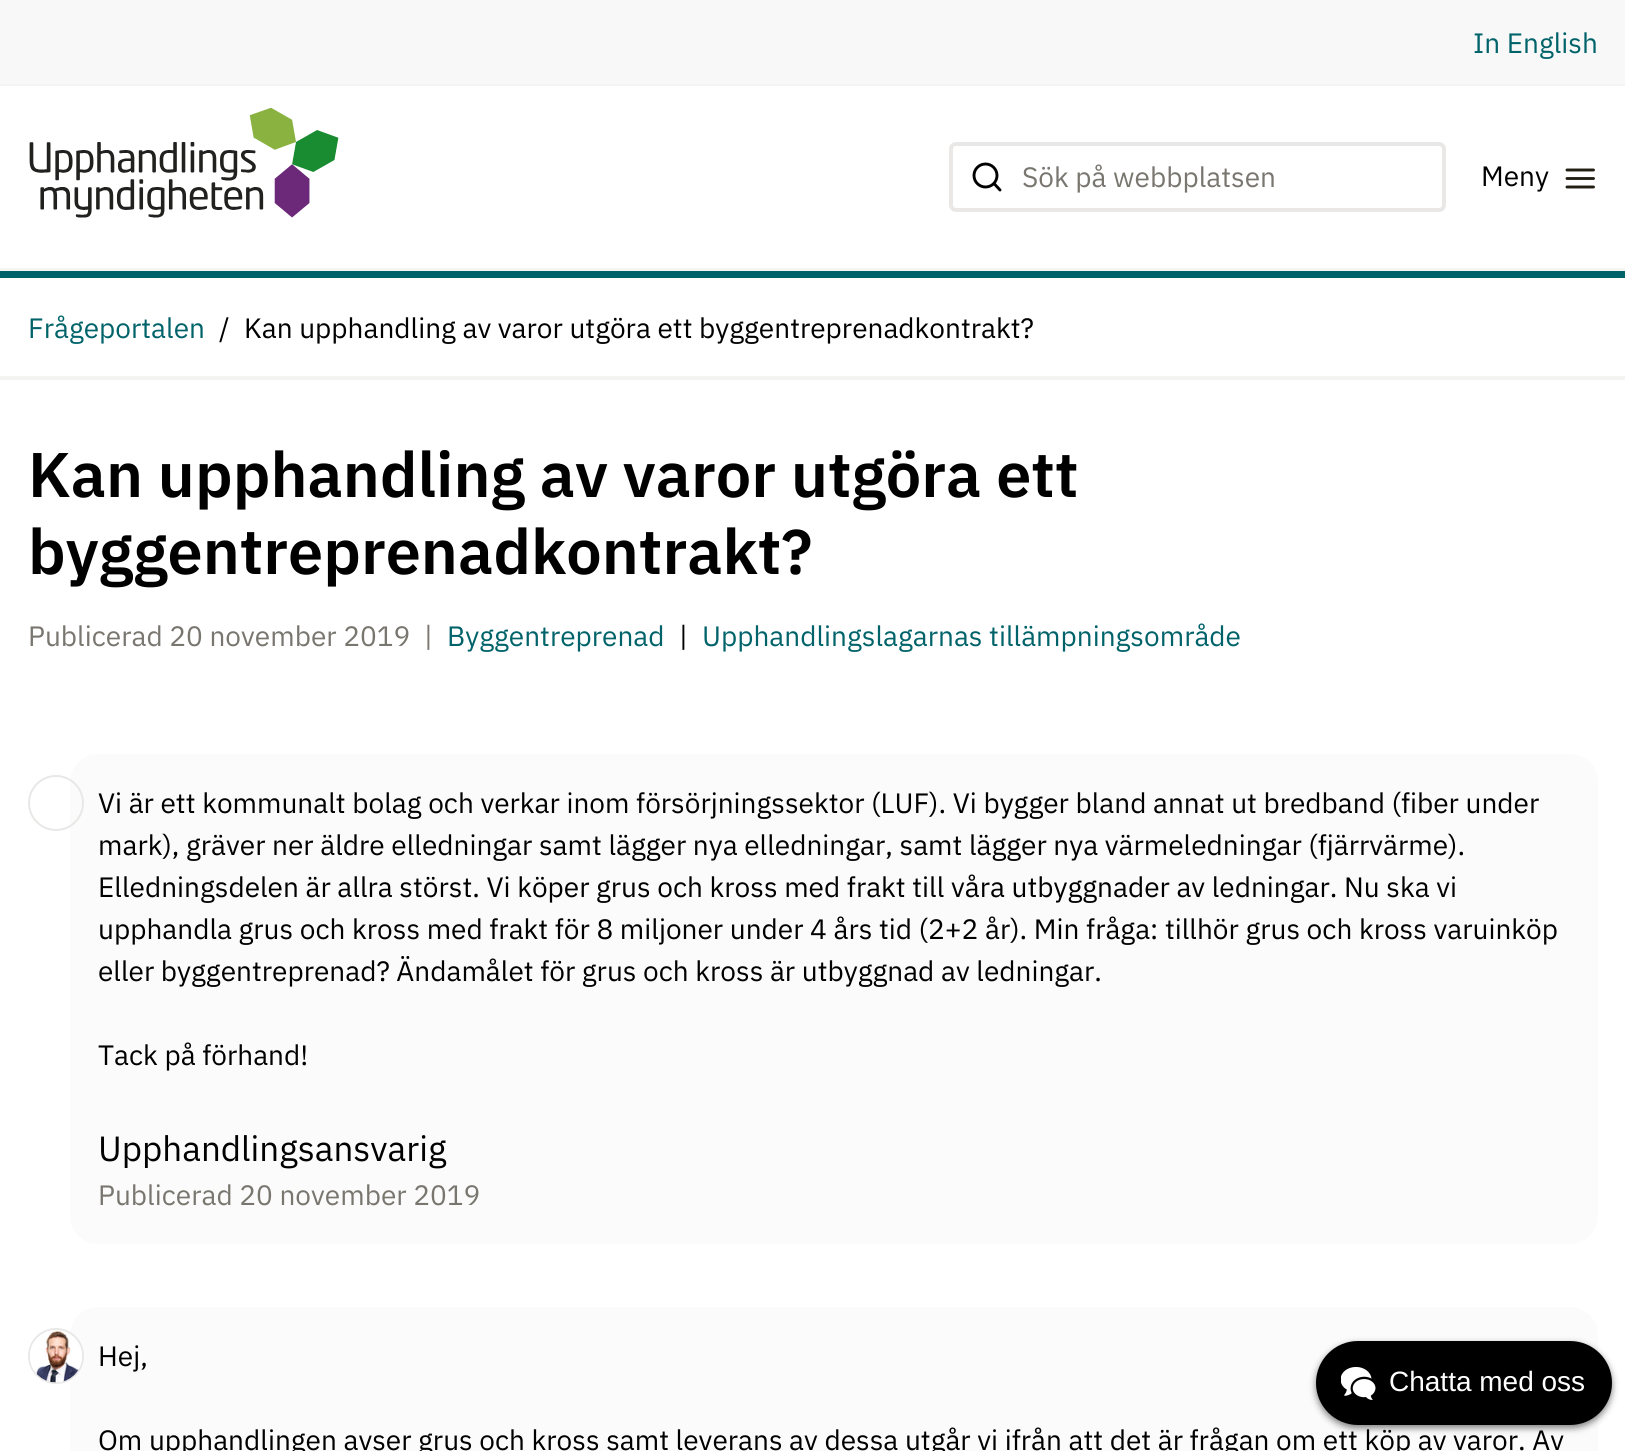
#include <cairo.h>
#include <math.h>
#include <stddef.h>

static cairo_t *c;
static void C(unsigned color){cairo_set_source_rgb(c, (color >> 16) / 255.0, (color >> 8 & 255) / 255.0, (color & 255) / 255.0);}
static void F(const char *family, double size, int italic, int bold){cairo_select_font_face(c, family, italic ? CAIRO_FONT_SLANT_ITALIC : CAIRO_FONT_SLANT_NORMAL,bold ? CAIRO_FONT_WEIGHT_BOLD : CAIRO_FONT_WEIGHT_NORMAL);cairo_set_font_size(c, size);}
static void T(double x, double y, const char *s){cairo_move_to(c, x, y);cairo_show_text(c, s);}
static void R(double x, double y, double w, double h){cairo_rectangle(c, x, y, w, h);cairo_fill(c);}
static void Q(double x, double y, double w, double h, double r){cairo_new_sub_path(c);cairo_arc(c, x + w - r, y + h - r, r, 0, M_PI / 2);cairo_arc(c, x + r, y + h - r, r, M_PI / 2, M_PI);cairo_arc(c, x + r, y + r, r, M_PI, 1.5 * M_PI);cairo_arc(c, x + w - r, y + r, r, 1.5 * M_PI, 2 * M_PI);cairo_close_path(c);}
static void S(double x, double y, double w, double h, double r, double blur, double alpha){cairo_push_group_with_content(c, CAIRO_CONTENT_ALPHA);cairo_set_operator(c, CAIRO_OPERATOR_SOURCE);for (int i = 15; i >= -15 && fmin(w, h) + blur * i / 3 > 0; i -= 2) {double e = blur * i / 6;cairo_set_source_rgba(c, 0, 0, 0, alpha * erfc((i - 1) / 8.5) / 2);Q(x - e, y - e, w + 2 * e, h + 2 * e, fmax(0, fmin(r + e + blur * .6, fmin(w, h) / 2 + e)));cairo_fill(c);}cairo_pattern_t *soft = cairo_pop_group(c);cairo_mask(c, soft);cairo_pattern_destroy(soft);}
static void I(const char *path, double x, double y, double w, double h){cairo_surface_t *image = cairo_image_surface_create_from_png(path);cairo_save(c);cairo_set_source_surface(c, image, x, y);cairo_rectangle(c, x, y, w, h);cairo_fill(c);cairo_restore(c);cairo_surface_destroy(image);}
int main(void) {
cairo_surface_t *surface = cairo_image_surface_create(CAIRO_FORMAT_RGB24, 1625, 1451);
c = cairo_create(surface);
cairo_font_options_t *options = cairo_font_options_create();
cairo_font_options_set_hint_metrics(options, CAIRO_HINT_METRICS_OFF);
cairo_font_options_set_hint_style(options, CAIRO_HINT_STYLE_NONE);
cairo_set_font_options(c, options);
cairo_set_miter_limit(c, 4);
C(0xffffff);
cairo_paint(c);
C(0xf8f8f8);
R(0,0,1625,84);
C(0xf4f4f3);
R(0,84,1625,2);
F("IBM Plex Sans",28,0,0);
C(0x00636a);
T(1473,53,"In English");
C(0xf4f4f3);
R(0,268,1625,3);
I("1.png",29,107,310,111);
Q(951,144,493,66,5);
C(0xe9e8e7);
cairo_set_line_width(c,4);
cairo_stroke(c);
cairo_arc(c,985.5,175.5,11.5,0,2 * M_PI);
C(0x000000);
cairo_set_line_width(c,2.9);
cairo_stroke(c);
cairo_new_path(c);
cairo_move_to(c,1000,190);
cairo_line_to(c,994,183.5);
cairo_set_line_cap(c,CAIRO_LINE_CAP_ROUND);
cairo_set_line_join(c,CAIRO_LINE_JOIN_ROUND);
cairo_stroke(c);
C(0x79766f);
T(1022,187,"Sök på webbplatsen");
C(0x000000);
T(1481,186,"Meny");
cairo_new_path(c);
cairo_move_to(c,1567,178.5);
cairo_line_to(c,1593.5,178.5);
cairo_move_to(c,1567,170);
cairo_line_to(c,1593.5,170);
cairo_move_to(c,1567,187);
cairo_line_to(c,1593.5,187);
C(0x231e13);
cairo_stroke(c);
C(0x00636a);
R(0,271,1625,7);
C(0xf4f4f3);
R(0,376,1625,4);
C(0x00636a);
T(28,338,"Frågeportalen");
C(0x000000);
T(219,338,"/");
T(244,338,"Kan upphandling av varor utgöra ett byggentreprenadkontrakt?");
F("IBM Plex Sans SemiBold",63,0,0);
T(28,497,"Kan upphandling av varor utgöra ett");
T(28,574,"byggentreprenadkontrakt?");
F("IBM Plex Sans",28,0,0);
C(0x79766f);
T(28,646,"Publicerad 20 november 2019");
T(424,646,"|");
C(0x00636a);
T(447,646,"Byggentreprenad");
C(0x000000);
T(679,646,"|");
C(0x00636a);
T(702,646,"Upphandlingslagarnas tillämpningsområde");
C(0xfbfbfb);
Q(70,754,1528,490,28);
cairo_fill(c);
cairo_arc(c,56,803,27,0,2 * M_PI);
C(0xe9e8e7);
cairo_set_line_width(c,2);
cairo_set_line_cap(c,CAIRO_LINE_CAP_BUTT);
cairo_set_line_join(c,CAIRO_LINE_JOIN_MITER);
cairo_stroke(c);
C(0x000000);
T(98,813,"Vi är ett kommunalt bolag och verkar inom försörjningssektor (LUF). Vi bygger bland annat ut bredband (fiber under");
T(98,855,"mark), gräver ner äldre elledningar samt lägger nya elledningar, samt lägger nya värmeledningar (fjärrvärme).");
T(98,897,"Elledningsdelen är allra störst. Vi köper grus och kross med frakt till våra utbyggnader av ledningar. Nu ska vi");
T(98,939,"upphandla grus och kross med frakt för 8 miljoner under 4 års tid (2+2 år). Min fråga: tillhör grus och kross varuinköp");
T(98,981,"eller byggentreprenad? Ändamålet för grus och kross är utbyggnad av ledningar.");
T(98,1065,"Tack på förhand!");
F("IBM Plex Sans",35,0,0);
T(98,1161,"Upphandlingsansvarig");
F("IBM Plex Sans",28,0,0);
C(0x79766f);
T(98,1205,"Publicerad 20 november 2019");
C(0xfbfbfb);
Q(70,1307,1528,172,28);
cairo_fill(c);
cairo_arc(c,56,1356,27,0,2 * M_PI);
C(0xe9e8e7);
cairo_stroke(c);
I("2.png",30,1330,52,53);
C(0x000000);
T(98,1366,"Hej,");
T(98,1450,"Om upphandlingen avser grus och kross samt leverans av dessa utgår vi ifrån att det är frågan om ett köp av varor. Av");
C(0x000000);
S(1316,1344,296,84,42,3.5,.5);
C(0x000000);
Q(1316,1341,296,84,42);
cairo_fill(c);
I("3.png",1341,1367,35,33);
F("Liberation Sans",28,0,0);
C(0xffffff);
T(1389,1391,"Chatta med oss");
cairo_surface_write_to_png(surface, "o.png");
cairo_font_options_destroy(options);
cairo_destroy(c);
cairo_surface_destroy(surface);
return 0;
}
